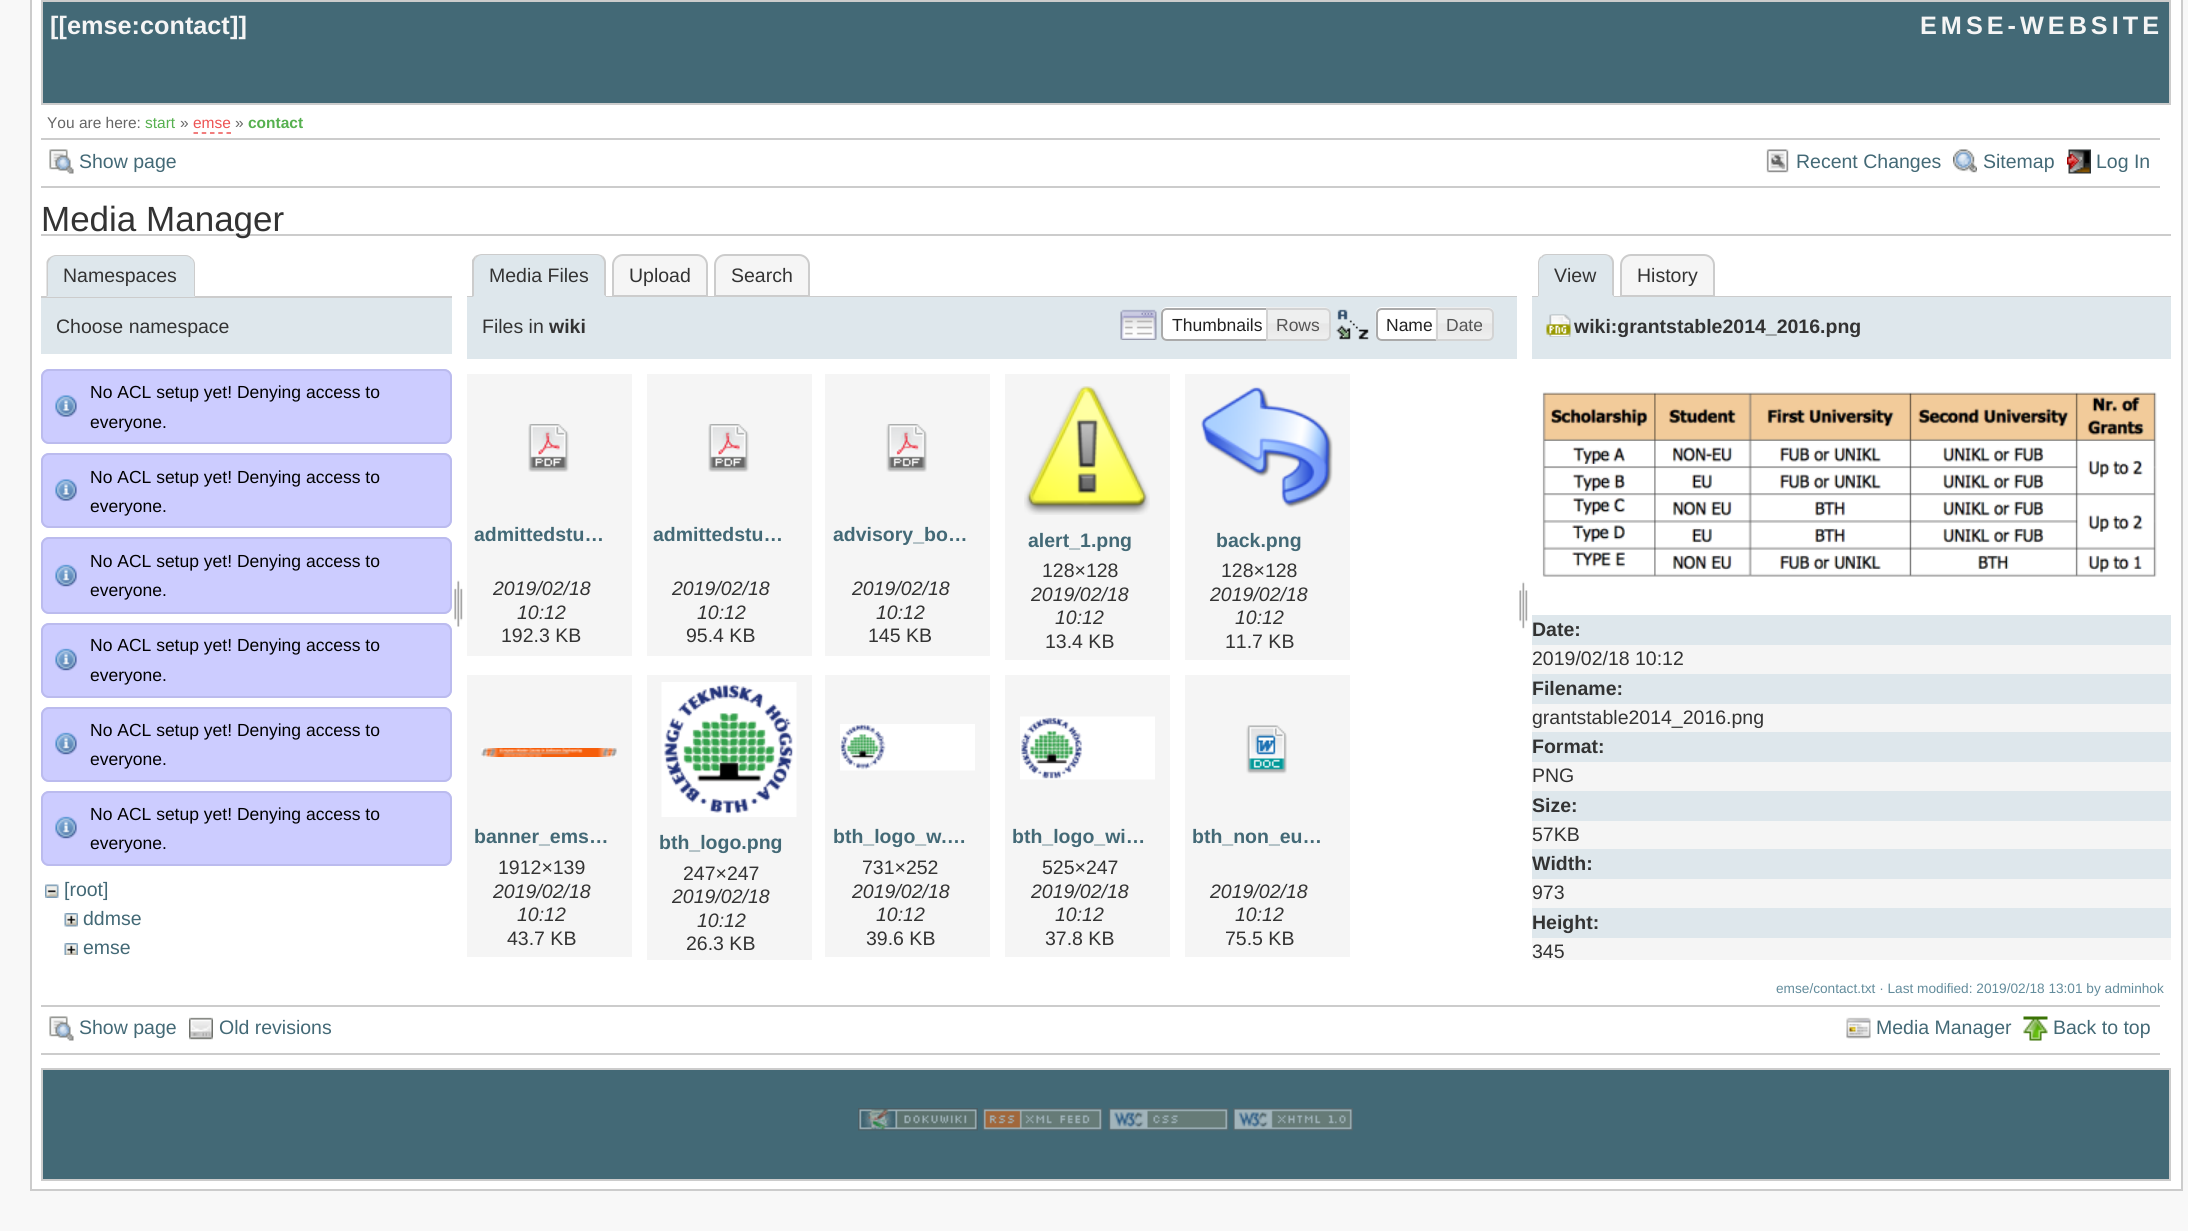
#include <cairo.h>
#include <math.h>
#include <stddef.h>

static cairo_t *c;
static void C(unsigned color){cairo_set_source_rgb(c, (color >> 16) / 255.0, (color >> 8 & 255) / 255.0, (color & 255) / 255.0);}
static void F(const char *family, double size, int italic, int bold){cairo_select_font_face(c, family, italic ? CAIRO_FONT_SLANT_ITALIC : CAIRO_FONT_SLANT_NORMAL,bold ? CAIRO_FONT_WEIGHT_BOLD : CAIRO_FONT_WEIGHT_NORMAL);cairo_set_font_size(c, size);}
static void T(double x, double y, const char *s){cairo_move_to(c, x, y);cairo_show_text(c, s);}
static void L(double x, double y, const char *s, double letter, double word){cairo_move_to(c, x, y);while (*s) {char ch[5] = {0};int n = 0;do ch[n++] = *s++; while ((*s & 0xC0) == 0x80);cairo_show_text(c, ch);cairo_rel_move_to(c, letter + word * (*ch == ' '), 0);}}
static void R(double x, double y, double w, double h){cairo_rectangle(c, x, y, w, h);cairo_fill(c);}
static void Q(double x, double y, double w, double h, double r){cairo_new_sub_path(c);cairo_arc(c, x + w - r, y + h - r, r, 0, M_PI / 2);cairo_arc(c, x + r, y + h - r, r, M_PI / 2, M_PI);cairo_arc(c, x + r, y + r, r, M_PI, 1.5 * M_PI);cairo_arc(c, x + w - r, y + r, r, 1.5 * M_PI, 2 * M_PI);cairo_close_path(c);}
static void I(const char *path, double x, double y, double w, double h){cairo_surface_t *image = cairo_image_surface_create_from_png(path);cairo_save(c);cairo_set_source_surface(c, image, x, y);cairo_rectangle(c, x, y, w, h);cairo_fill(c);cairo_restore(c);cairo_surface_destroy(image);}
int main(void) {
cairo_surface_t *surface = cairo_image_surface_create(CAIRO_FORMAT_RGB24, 2188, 1231);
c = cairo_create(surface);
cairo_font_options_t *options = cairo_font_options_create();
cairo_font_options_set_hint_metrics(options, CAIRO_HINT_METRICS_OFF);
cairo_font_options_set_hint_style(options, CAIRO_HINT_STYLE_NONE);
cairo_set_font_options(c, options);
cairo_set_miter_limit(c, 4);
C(0xf8f8f8);
cairo_paint(c);
C(0xffffff);
cairo_rectangle(c,31,-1,2151,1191);
cairo_fill_preserve(c);
C(0xcccccc);
cairo_stroke(c);
C(0x436976);
cairo_rectangle(c,42,1,2128,103);
cairo_fill_preserve(c);
C(0xcccccc);
cairo_stroke(c);
F("Liberation Sans",25.25,0,1);
C(0xf5f5f5);
T(50,34,"[[");
T(67,34,"emse:contact");
T(230,34,"]]");
L(1920,34,"EMSE-WEBSITE",4,0);
F("Liberation Sans",15.5,0,0);
C(0x666666);
T(47,128,"You are here:");
C(0x56b04f);
T(145,128,"start");
C(0x666666);
T(180,128,"»");
C(0xed5353);
T(193,128,"emse");
cairo_new_path(c);
cairo_move_to(c,193.5,133);
cairo_line_to(c,231,133);
cairo_set_line_width(c,1.5);
cairo_set_dash(c,(double[]){4.5,3.75},2,0);
cairo_stroke(c);
C(0x666666);
T(235,128,"»");
F("Liberation Sans",15.5,0,1);
C(0x56b04f);
T(248,128,"contact");
C(0xcccccc);
R(41,138,2119,2);
R(41,186,2119,2);
I("1.png",49,149,25,25);
F("Liberation Sans",19.5,0,0);
C(0x436976);
T(79,168,"Show page");
I("2.png",1766,149,23,24);
T(1796,168,"Recent Changes");
I("3.png",1953,149,24,24);
T(1983,168,"Sitemap");
I("4.png",2067,149,24,25);
T(2096,168,"Log In");
C(0xcccccc);
R(41,234,2130,2);
F("Liberation Sans",35,0,0);
C(0x333333);
T(41,231,"Media Manager");
C(0xcccccc);
R(41,296,411,2);
C(0xdee7ec);
cairo_new_path(c);
cairo_move_to(c,58,255);
cairo_line_to(c,184,255);
cairo_curve_to(c,190,255,195,260,195,266);
cairo_line_to(c,195,297);
cairo_line_to(c,47,297);
cairo_line_to(c,47,266);
cairo_curve_to(c,47,260,52,255,58,255);
cairo_close_path(c);
cairo_fill(c);
C(0xcccccc);
cairo_new_path(c);
cairo_move_to(c,56,255);
cairo_curve_to(c,54,255,51,256,49,258);
cairo_line_to(c,50,259);
cairo_curve_to(c,52,257,54,256,56,256);
cairo_line_to(c,185,256);
cairo_curve_to(c,188,256,190,257,191,259);
cairo_line_to(c,192,258);
cairo_curve_to(c,190,256,188,255,185,255);
cairo_close_path(c);
cairo_fill(c);
cairo_new_path(c);
cairo_move_to(c,195,297);
cairo_line_to(c,195,265);
cairo_curve_to(c,195,262,194,259.5,192,258);
cairo_line_to(c,191.5,258.5);
cairo_curve_to(c,193,260,194,262.5,194,265);
cairo_line_to(c,194,296);
cairo_close_path(c);
cairo_fill(c);
C(0xdee7ec);
cairo_new_path(c);
cairo_move_to(c,195,297);
cairo_line_to(c,194,296);
cairo_line_to(c,48,296);
cairo_line_to(c,46,297);
cairo_close_path(c);
cairo_fill(c);
C(0xcccccc);
cairo_new_path(c);
cairo_move_to(c,46.5,297);
cairo_line_to(c,46.5,262);
cairo_curve_to(c,47,260,48,259,49,257.5);
cairo_line_to(c,50.5,259);
cairo_curve_to(c,49,260.5,48,262.5,48,265);
cairo_line_to(c,48,295.5);
cairo_close_path(c);
cairo_fill(c);
F("Liberation Sans",19.5,0,0);
C(0x333333);
T(63,282,"Namespaces");
C(0xdee7ec);
R(41,298,411,56);
C(0x333333);
T(56,333,"Choose namespace");
C(0xccccff);
Q(41,369,411,75,8);
cairo_fill(c);
I("5.png",55,395,22,22);
Q(42,370,409,73,7);
C(0xbbbbee);
cairo_set_line_width(c,2);
cairo_set_dash(c,NULL,0,0);
cairo_stroke(c);
F("Liberation Sans",17.5,0,0);
C(0x000000);
T(90,398,"No ACL setup yet! Denying access to");
T(90,428,"everyone.");
C(0xccccff);
Q(41,453,411,75,8);
cairo_fill(c);
I("5.png",55,479,22,22);
Q(42,454,409,73,7);
C(0xbbbbee);
cairo_stroke(c);
C(0x000000);
T(90,483,"No ACL setup yet! Denying access to");
T(90,512,"everyone.");
C(0xccccff);
Q(41,537,411,77,8);
cairo_fill(c);
I("6.png",55,564,22,23);
Q(42,538,409,75,7);
C(0xbbbbee);
cairo_stroke(c);
C(0x000000);
T(90,567,"No ACL setup yet! Denying access to");
T(90,596,"everyone.");
C(0xccccff);
Q(41,623,411,75,8);
cairo_fill(c);
I("6.png",55,648,22,23);
Q(42,624,409,73,7);
C(0xbbbbee);
cairo_stroke(c);
C(0x000000);
T(90,651,"No ACL setup yet! Denying access to");
T(90,681,"everyone.");
C(0xccccff);
Q(41,707,411,75,8);
cairo_fill(c);
I("6.png",55,732,22,23);
Q(42,708,409,73,7);
C(0xbbbbee);
cairo_stroke(c);
C(0x000000);
T(90,736,"No ACL setup yet! Denying access to");
T(90,765,"everyone.");
C(0xccccff);
Q(41,791,411,75,8);
cairo_fill(c);
I("6.png",55,816,22,23);
Q(42,792,409,73,7);
C(0xbbbbee);
cairo_stroke(c);
C(0x000000);
T(90,820,"No ACL setup yet! Denying access to");
T(90,849,"everyone.");
I("7.png",45,884,14,14);
F("Liberation Sans",19.5,0,0);
C(0x436976);
T(64,896,"[root]");
I("8.png",64,913,14,14);
T(83,925,"ddmse");
I("9.png",64,943,14,12);
T(83,954,"emse");
I("10.png",454,580,9,47);
C(0xf5f5f5);
cairo_new_path(c);
cairo_move_to(c,623,255);
cairo_line_to(c,697,255);
cairo_curve_to(c,702.5,255,707,259.5,707,265);
cairo_line_to(c,707,296);
cairo_line_to(c,613,296);
cairo_line_to(c,613,265);
cairo_curve_to(c,613,259.5,617.5,255,623,255);
cairo_close_path(c);
cairo_fill_preserve(c);
C(0xcccccc);
cairo_stroke(c);
C(0xf5f5f5);
cairo_new_path(c);
cairo_move_to(c,725,255);
cairo_line_to(c,799,255);
cairo_curve_to(c,804.5,255,809,259.5,809,265);
cairo_line_to(c,809,296);
cairo_line_to(c,715,296);
cairo_line_to(c,715,265);
cairo_curve_to(c,715,259.5,719.5,255,725,255);
cairo_close_path(c);
cairo_fill_preserve(c);
C(0xcccccc);
cairo_stroke(c);
R(467,296,1050,1);
C(0xdee7ec);
cairo_new_path(c);
cairo_move_to(c,484,254);
cairo_line_to(c,595,254);
cairo_curve_to(c,601,254,606,259,606,265);
cairo_line_to(c,606,297);
cairo_line_to(c,473,297);
cairo_line_to(c,473,265);
cairo_curve_to(c,473,259,478,254,484,254);
cairo_close_path(c);
cairo_fill(c);
C(0xcccccc);
cairo_new_path(c);
cairo_move_to(c,482,254);
cairo_curve_to(c,480,254,477,255,475,256);
cairo_line_to(c,476,258);
cairo_curve_to(c,478,256,480,255,482,255);
cairo_line_to(c,596,255);
cairo_curve_to(c,599,255,601,256,602,258);
cairo_line_to(c,603,256);
cairo_curve_to(c,601,255,599,254,596,254);
cairo_close_path(c);
cairo_fill(c);
cairo_new_path(c);
cairo_move_to(c,603,256);
cairo_curve_to(c,605,258,606,260,606,263);
cairo_line_to(c,606,297);
cairo_line_to(c,604,295);
cairo_line_to(c,604,263);
cairo_curve_to(c,604,261,603,259,602,258);
cairo_close_path(c);
cairo_fill(c);
C(0xdee7ec);
cairo_new_path(c);
cairo_move_to(c,606,297);
cairo_line_to(c,604,295);
cairo_line_to(c,604,296);
cairo_line_to(c,474,296);
cairo_line_to(c,472,297);
cairo_close_path(c);
cairo_fill(c);
C(0xcccccc);
cairo_new_path(c);
cairo_move_to(c,472,297);
cairo_line_to(c,474,296);
cairo_line_to(c,474,263);
cairo_curve_to(c,474,261,475,259,476,258);
cairo_line_to(c,475,256);
cairo_line_to(c,472,260);
cairo_close_path(c);
cairo_fill(c);
C(0x333333);
T(489,282,"Media Files");
T(629,282,"Upload");
T(731,282,"Search");
C(0xdee7ec);
R(467,297,1050,62);
C(0x333333);
T(482,333,"Files in");
F("Liberation Sans",19.5,0,1);
T(549,333,"wiki");
I("11.png",1120,309,37,31);
C(0xffffff);
cairo_new_path(c);
cairo_move_to(c,1167,308);
cairo_line_to(c,1274,308);
cairo_line_to(c,1274,341);
cairo_line_to(c,1167,341);
cairo_curve_to(c,1163.5,341,1161,338.5,1161,335);
cairo_line_to(c,1161,314);
cairo_curve_to(c,1161,310.5,1163.5,308,1167,308);
cairo_close_path(c);
cairo_fill(c);
I("12.png",1161,307,105,6);
cairo_new_path(c);
cairo_move_to(c,1167,309);
cairo_line_to(c,1273,309);
cairo_line_to(c,1273,340);
cairo_line_to(c,1167,340);
cairo_curve_to(c,1164,340,1162,338,1162,335);
cairo_line_to(c,1162,314);
cairo_curve_to(c,1162,311,1164,309,1167,309);
cairo_close_path(c);
C(0xaaaaaa);
cairo_stroke(c);
F("Liberation Sans",17.5,0,0);
C(0x212121);
T(1172,331,"Thumbnails");
I("13.png",1266,307,64,32);
cairo_new_path(c);
cairo_move_to(c,1267,309);
cairo_line_to(c,1325,309);
cairo_curve_to(c,1328,309,1330,311,1330,314);
cairo_line_to(c,1330,335);
cairo_curve_to(c,1330,338,1328,340,1325,340);
cairo_line_to(c,1267,340);
cairo_close_path(c);
C(0xd3d3d3);
cairo_stroke(c);
C(0x555555);
T(1276,331,"Rows");
I("14.png",1336,309,33,31);
C(0xffffff);
cairo_new_path(c);
cairo_move_to(c,1382,308);
cairo_line_to(c,1443,308);
cairo_line_to(c,1443,341);
cairo_line_to(c,1382,341);
cairo_curve_to(c,1378.5,341,1376,338.5,1376,335);
cairo_line_to(c,1376,314);
cairo_curve_to(c,1376,310.5,1378.5,308,1382,308);
cairo_close_path(c);
cairo_fill(c);
I("15.png",1375,307,61,30);
cairo_new_path(c);
cairo_move_to(c,1382,309);
cairo_line_to(c,1442,309);
cairo_line_to(c,1442,340);
cairo_line_to(c,1382,340);
cairo_curve_to(c,1379,340,1377,338,1377,335);
cairo_line_to(c,1377,314);
cairo_curve_to(c,1377,311,1379,309,1382,309);
cairo_close_path(c);
C(0xaaaaaa);
cairo_stroke(c);
C(0x212121);
T(1386,331,"Name");
I("16.png",1435,307,59,33);
cairo_new_path(c);
cairo_move_to(c,1437,309);
cairo_line_to(c,1488,309);
cairo_curve_to(c,1491,309,1493,311,1493,314);
cairo_line_to(c,1493,335);
cairo_curve_to(c,1493,338,1491,340,1488,340);
cairo_line_to(c,1437,340);
cairo_close_path(c);
C(0xd3d3d3);
cairo_stroke(c);
C(0x555555);
T(1446,331,"Date");
C(0xf5f5f5);
R(467,374,165,282);
I("17.png",528,424,41,48);
F("Liberation Sans",19.5,0,1);
C(0x436976);
T(474,541,"admittedstu…");
F("Liberation Sans",19.5,1,0);
C(0x333333);
T(493,595,"2019/02/18");
T(517,619,"10:12");
F("Liberation Sans",19.5,0,0);
T(501,642,"192.3 KB");
C(0xf5f5f5);
R(647,374,165,282);
I("18.png",708,424,41,48);
F("Liberation Sans",19.5,0,1);
C(0x436976);
T(653,541,"admittedstu…");
F("Liberation Sans",19.5,1,0);
C(0x333333);
T(672,595,"2019/02/18");
T(697,619,"10:12");
F("Liberation Sans",19.5,0,0);
T(686,642,"95.4 KB");
C(0xf5f5f5);
R(825,374,165,282);
I("19.png",886,424,41,48);
F("Liberation Sans",19.5,0,1);
C(0x436976);
T(833,541,"advisory_bo…");
F("Liberation Sans",19.5,1,0);
C(0x333333);
T(852,595,"2019/02/18");
T(876,619,"10:12");
F("Liberation Sans",19.5,0,0);
T(868,642,"145 KB");
C(0xf5f5f5);
R(1005,374,165,286);
I("20.png",1024,386,126,129);
F("Liberation Sans",19.5,0,1);
C(0x436976);
T(1028,547,"alert_1.png");
F("Liberation Sans",19.5,0,0);
C(0x333333);
T(1042,577,"128×128");
F("Liberation Sans",19.5,1,0);
T(1031,601,"2019/02/18");
T(1055,624,"10:12");
F("Liberation Sans",19.5,0,0);
T(1045,648,"13.4 KB");
C(0xf5f5f5);
R(1185,374,165,286);
I("21.png",1201,386,132,122);
F("Liberation Sans",19.5,0,1);
C(0x436976);
T(1216,547,"back.png");
F("Liberation Sans",19.5,0,0);
C(0x333333);
T(1221,577,"128×128");
F("Liberation Sans",19.5,1,0);
T(1210,601,"2019/02/18");
T(1235,624,"10:12");
F("Liberation Sans",19.5,0,0);
T(1225,648,"11.7 KB");
C(0xf5f5f5);
R(467,675,165,282);
I("22.png",481,748,136,9);
F("Liberation Sans",19.5,0,1);
C(0x436976);
T(474,843,"banner_ems…");
F("Liberation Sans",19.5,0,0);
C(0x333333);
T(498,874,"1912×139");
F("Liberation Sans",19.5,1,0);
T(493,898,"2019/02/18");
T(517,921,"10:12");
F("Liberation Sans",19.5,0,0);
T(507,945,"43.7 KB");
C(0xf5f5f5);
R(647,675,165,285);
I("23.png",661,682,136,135);
F("Liberation Sans",19.5,0,1);
C(0x436976);
T(659,849,"bth_logo.png");
F("Liberation Sans",19.5,0,0);
C(0x333333);
T(683,880,"247×247");
F("Liberation Sans",19.5,1,0);
T(672,903,"2019/02/18");
T(697,927,"10:12");
F("Liberation Sans",19.5,0,0);
T(686,950,"26.3 KB");
C(0xf5f5f5);
R(825,675,165,282);
I("24.png",840,724,135,47);
F("Liberation Sans",19.5,0,1);
C(0x436976);
T(833,843,"bth_logo_w.…");
F("Liberation Sans",19.5,0,0);
C(0x333333);
T(862,874,"731×252");
F("Liberation Sans",19.5,1,0);
T(852,898,"2019/02/18");
T(876,921,"10:12");
F("Liberation Sans",19.5,0,0);
T(866,945,"39.6 KB");
C(0xf5f5f5);
R(1005,675,165,282);
I("25.png",1020,716,135,64);
F("Liberation Sans",19.5,0,1);
C(0x436976);
T(1012,843,"bth_logo_wi…");
F("Liberation Sans",19.5,0,0);
C(0x333333);
T(1042,874,"525×247");
F("Liberation Sans",19.5,1,0);
T(1031,898,"2019/02/18");
T(1055,921,"10:12");
F("Liberation Sans",19.5,0,0);
T(1045,945,"37.8 KB");
C(0xf5f5f5);
R(1185,675,165,282);
I("26.png",1246,725,41,49);
F("Liberation Sans",19.5,0,1);
C(0x436976);
T(1192,843,"bth_non_eu…");
F("Liberation Sans",19.5,1,0);
C(0x333333);
T(1210,898,"2019/02/18");
T(1235,921,"10:12");
F("Liberation Sans",19.5,0,0);
T(1225,945,"75.5 KB");
I("27.png",1519,581,9,48);
C(0xf5f5f5);
cairo_new_path(c);
cairo_move_to(c,1631,255);
cairo_line_to(c,1704,255);
cairo_curve_to(c,1709.5,255,1714,259.5,1714,265);
cairo_line_to(c,1714,296);
cairo_line_to(c,1621,296);
cairo_line_to(c,1621,265);
cairo_curve_to(c,1621,259.5,1625.5,255,1631,255);
cairo_close_path(c);
cairo_fill_preserve(c);
C(0xcccccc);
cairo_stroke(c);
R(1532,296,639,1);
C(0xdee7ec);
cairo_new_path(c);
cairo_move_to(c,1549,254);
cairo_line_to(c,1603,254);
cairo_curve_to(c,1609,254,1614,259,1614,265);
cairo_line_to(c,1614,297);
cairo_line_to(c,1538,297);
cairo_line_to(c,1538,265);
cairo_curve_to(c,1538,259,1543,254,1549,254);
cairo_close_path(c);
cairo_fill(c);
C(0xcccccc);
cairo_new_path(c);
cairo_move_to(c,1547,254);
cairo_curve_to(c,1544,254,1542,255,1541,257);
cairo_line_to(c,1542,258);
cairo_curve_to(c,1543,256,1545,255,1547,255);
cairo_line_to(c,1604,255);
cairo_curve_to(c,1607,255,1609,256,1610,258);
cairo_line_to(c,1611,256);
cairo_curve_to(c,1609,255,1607,254,1604,254);
cairo_close_path(c);
cairo_fill(c);
cairo_new_path(c);
cairo_move_to(c,1611,256);
cairo_curve_to(c,1613,258,1614,260,1614,263);
cairo_line_to(c,1614,297);
cairo_line_to(c,1612,295);
cairo_line_to(c,1612,263);
cairo_curve_to(c,1612,261,1611,259,1610,258);
cairo_close_path(c);
cairo_fill(c);
C(0xdee7ec);
cairo_new_path(c);
cairo_move_to(c,1614,297);
cairo_line_to(c,1612,295);
cairo_line_to(c,1612,296);
cairo_line_to(c,1539,296);
cairo_line_to(c,1538,297);
cairo_close_path(c);
cairo_fill(c);
C(0xcccccc);
cairo_new_path(c);
cairo_move_to(c,1540.5,256.5);
cairo_curve_to(c,1539,258,1538,260.5,1538,263);
cairo_line_to(c,1538,296.5);
cairo_line_to(c,1539,295.5);
cairo_line_to(c,1539,263);
cairo_curve_to(c,1539,261,1540,259,1541.5,257.5);
cairo_close_path(c);
cairo_fill(c);
C(0x333333);
T(1554,282,"View");
T(1637,282,"History");
C(0xdee7ec);
R(1532,297,639,62);
I("28.png",1546,314,25,23);
F("Liberation Sans",19.5,0,1);
C(0x333333);
T(1574,333,"wiki:grantstable2014_2016.png");
I("29.png",1542,392,615,185);
C(0xdee7ec);
R(1532,615,639,30);
C(0x333333);
T(1532,636,"Date:");
C(0xf5f5f5);
R(1532,645,639,29);
F("Liberation Sans",19.5,0,0);
C(0x333333);
T(1532,665,"2019/02/18 10:12");
C(0xdee7ec);
R(1532,674,639,30);
F("Liberation Sans",19.5,0,1);
C(0x333333);
T(1532,695,"Filename:");
C(0xf5f5f5);
R(1532,704,639,28);
F("Liberation Sans",19.5,0,0);
C(0x333333);
T(1532,724,"grantstable2014_2016.png");
C(0xdee7ec);
R(1532,732,639,30);
F("Liberation Sans",19.5,0,1);
C(0x333333);
T(1532,753,"Format:");
C(0xf5f5f5);
R(1532,762,639,29);
F("Liberation Sans",19.5,0,0);
C(0x333333);
T(1532,782,"PNG");
C(0xdee7ec);
R(1532,791,639,30);
F("Liberation Sans",19.5,0,1);
C(0x333333);
T(1532,812,"Size:");
C(0xf5f5f5);
R(1532,821,639,28);
F("Liberation Sans",19.5,0,0);
C(0x333333);
T(1532,841,"57KB");
C(0xdee7ec);
R(1532,849,639,30);
F("Liberation Sans",19.5,0,1);
C(0x333333);
T(1532,870,"Width:");
C(0xf5f5f5);
R(1532,879,639,29);
F("Liberation Sans",19.5,0,0);
C(0x333333);
T(1532,899,"973");
C(0xdee7ec);
R(1532,908,639,30);
F("Liberation Sans",19.5,0,1);
C(0x333333);
T(1532,929,"Height:");
C(0xf5f5f5);
R(1532,938,639,22);
F("Liberation Sans",19.5,0,0);
C(0x333333);
T(1532,958,"345");
F("Liberation Sans",13.65,0,0);
C(0x638c9c);
T(1776,993,"emse/contact.txt · Last modified: 2019/02/18 13:01 by adminhok");
C(0xcccccc);
R(41,1005,2119,2);
R(41,1053,2119,2);
I("1.png",49,1016,25,25);
F("Liberation Sans",19.5,0,0);
C(0x436976);
T(79,1034,"Show page");
I("30.png",189,1017,24,23);
T(219,1034,"Old revisions");
I("31.png",1846,1017,25,22);
T(1876,1034,"Media Manager");
I("32.png",2023,1016,25,25);
T(2053,1034,"Back to top");
cairo_rectangle(c,42,1069,2128,111);
cairo_fill_preserve(c);
C(0xcccccc);
cairo_stroke(c);
I("33.png",858,1108,120,23);
I("34.png",982,1108,121,23);
I("35.png",1108,1108,121,23);
I("36.png",1233,1108,120,23);
cairo_surface_write_to_png(surface, "o.png");
cairo_font_options_destroy(options);
cairo_destroy(c);
cairo_surface_destroy(surface);
return 0;
}
